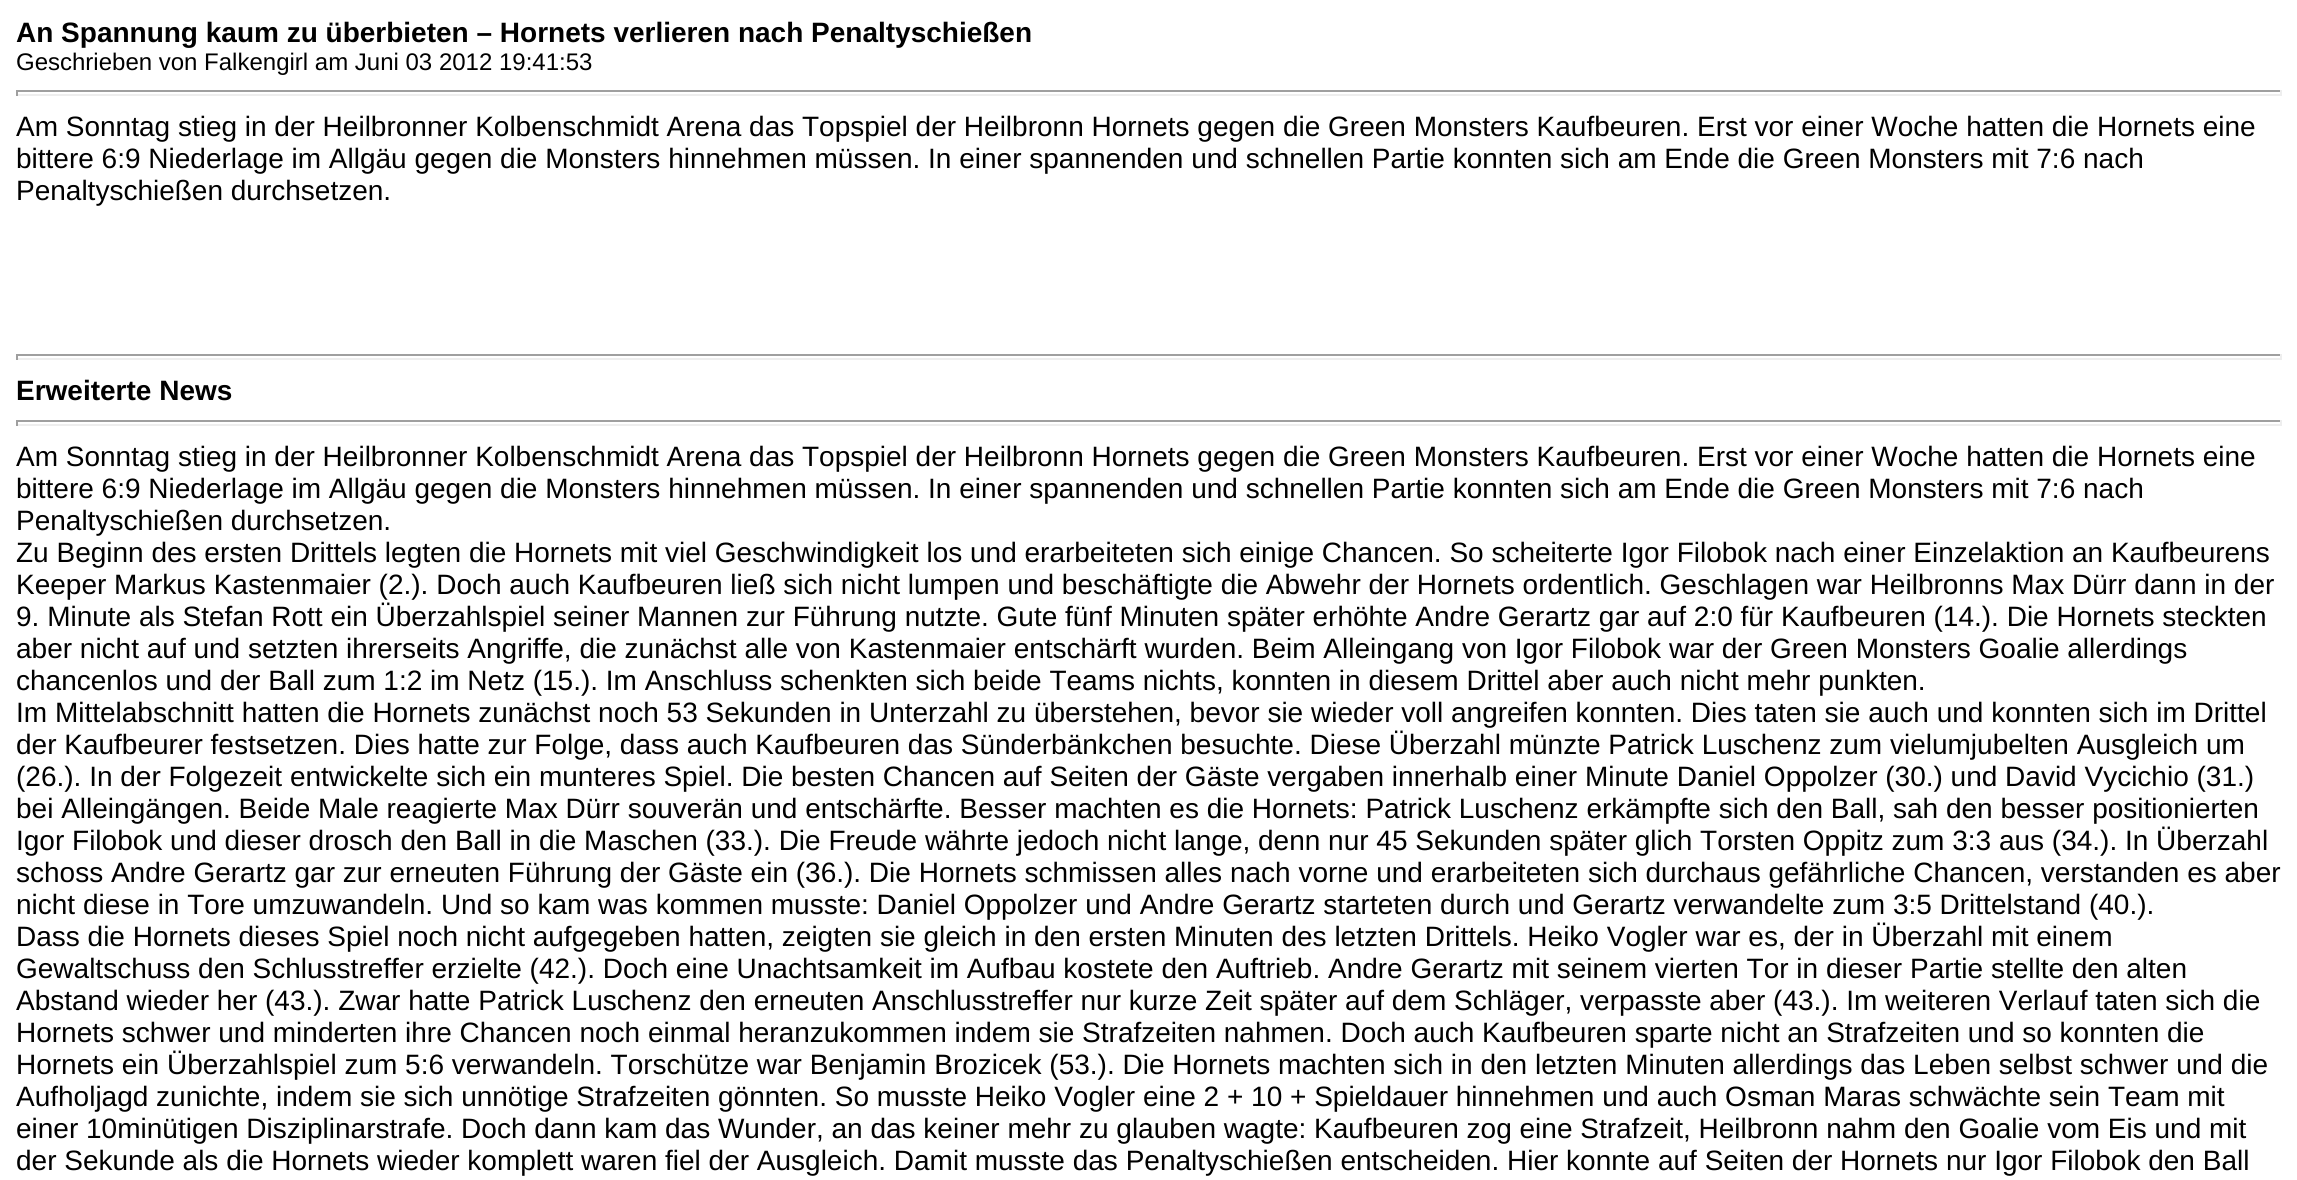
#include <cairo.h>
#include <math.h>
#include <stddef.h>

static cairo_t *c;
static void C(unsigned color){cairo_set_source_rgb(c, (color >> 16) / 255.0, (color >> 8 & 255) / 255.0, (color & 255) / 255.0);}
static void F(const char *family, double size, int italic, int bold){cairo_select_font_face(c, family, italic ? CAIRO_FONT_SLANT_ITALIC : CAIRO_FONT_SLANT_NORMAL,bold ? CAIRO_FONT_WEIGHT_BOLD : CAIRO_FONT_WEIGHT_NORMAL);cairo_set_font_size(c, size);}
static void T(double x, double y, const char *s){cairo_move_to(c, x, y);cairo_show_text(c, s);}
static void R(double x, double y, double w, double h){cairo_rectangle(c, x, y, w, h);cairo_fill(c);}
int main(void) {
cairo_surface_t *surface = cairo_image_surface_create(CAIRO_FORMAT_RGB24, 2297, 1180);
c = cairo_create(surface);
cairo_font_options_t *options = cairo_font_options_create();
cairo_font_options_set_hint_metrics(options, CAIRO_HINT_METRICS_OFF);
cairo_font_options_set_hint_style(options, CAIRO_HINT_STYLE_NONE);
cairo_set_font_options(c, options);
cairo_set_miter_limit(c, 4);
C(0xffffff);
cairo_paint(c);
F("Liberation Sans",28,0,1);
C(0x000000);
T(16,42,"An Spannung kaum zu überbieten – Hornets verlieren nach Penaltyschießen");
F("Liberation Sans",24,0,0);
T(16,70,"Geschrieben von Falkengirl am Juni 03 2012 19:41:53");
C(0x9f9f9f);
R(16,90,2266,2);
C(0xeeeeee);
R(2280,90,2,6);
R(16,94,2266,2);
C(0x9f9f9f);
R(16,90,2,6);
F("Liberation Sans",28,0,0);
C(0x000000);
T(16,136,"Am Sonntag stieg in der Heilbronner Kolbenschmidt Arena das Topspiel der Heilbronn Hornets gegen die Green Monsters Kaufbeuren. Erst vor einer Woche hatten die Hornets eine");
T(16,168,"bittere 6:9 Niederlage im Allgäu gegen die Monsters hinnehmen müssen. In einer spannenden und schnellen Partie konnten sich am Ende die Green Monsters mit 7:6 nach");
T(16,200,"Penaltyschießen durchsetzen.");
C(0x9f9f9f);
R(16,354,2266,2);
C(0xeeeeee);
R(2280,354,2,6);
R(16,358,2266,2);
C(0x9f9f9f);
R(16,354,2,6);
F("Liberation Sans",28,0,1);
C(0x000000);
T(16,400,"Erweiterte News");
C(0x9f9f9f);
R(16,420,2266,2);
C(0xeeeeee);
R(2280,420,2,6);
R(16,424,2266,2);
C(0x9f9f9f);
R(16,420,2,6);
F("Liberation Sans",28,0,0);
C(0x000000);
T(16,466,"Am Sonntag stieg in der Heilbronner Kolbenschmidt Arena das Topspiel der Heilbronn Hornets gegen die Green Monsters Kaufbeuren. Erst vor einer Woche hatten die Hornets eine");
T(16,498,"bittere 6:9 Niederlage im Allgäu gegen die Monsters hinnehmen müssen. In einer spannenden und schnellen Partie konnten sich am Ende die Green Monsters mit 7:6 nach");
T(16,530,"Penaltyschießen durchsetzen.");
T(16,562,"Zu Beginn des ersten Drittels legten die Hornets mit viel Geschwindigkeit los und erarbeiteten sich einige Chancen. So scheiterte Igor Filobok nach einer Einzelaktion an Kaufbeurens");
T(16,594,"Keeper Markus Kastenmaier (2.). Doch auch Kaufbeuren ließ sich nicht lumpen und beschäftigte die Abwehr der Hornets ordentlich. Geschlagen war Heilbronns Max Dürr dann in der");
T(16,626,"9. Minute als Stefan Rott ein Überzahlspiel seiner Mannen zur Führung nutzte. Gute fünf Minuten später erhöhte Andre Gerartz gar auf 2:0 für Kaufbeuren (14.). Die Hornets steckten");
T(16,658,"aber nicht auf und setzten ihrerseits Angriffe, die zunächst alle von Kastenmaier entschärft wurden. Beim Alleingang von Igor Filobok war der Green Monsters Goalie allerdings");
T(16,690,"chancenlos und der Ball zum 1:2 im Netz (15.). Im Anschluss schenkten sich beide Teams nichts, konnten in diesem Drittel aber auch nicht mehr punkten.");
T(16,722,"Im Mittelabschnitt hatten die Hornets zunächst noch 53 Sekunden in Unterzahl zu überstehen, bevor sie wieder voll angreifen konnten. Dies taten sie auch und konnten sich im Drittel");
T(16,754,"der Kaufbeurer festsetzen. Dies hatte zur Folge, dass auch Kaufbeuren das Sünderbänkchen besuchte. Diese Überzahl münzte Patrick Luschenz zum vielumjubelten Ausgleich um");
T(16,786,"(26.). In der Folgezeit entwickelte sich ein munteres Spiel. Die besten Chancen auf Seiten der Gäste vergaben innerhalb einer Minute Daniel Oppolzer (30.) und David Vycichio (31.)");
T(16,818,"bei Alleingängen. Beide Male reagierte Max Dürr souverän und entschärfte. Besser machten es die Hornets: Patrick Luschenz erkämpfte sich den Ball, sah den besser positionierten");
T(16,850,"Igor Filobok und dieser drosch den Ball in die Maschen (33.). Die Freude währte jedoch nicht lange, denn nur 45 Sekunden später glich Torsten Oppitz zum 3:3 aus (34.). In Überzahl");
T(16,882,"schoss Andre Gerartz gar zur erneuten Führung der Gäste ein (36.). Die Hornets schmissen alles nach vorne und erarbeiteten sich durchaus gefährliche Chancen, verstanden es aber");
T(16,914,"nicht diese in Tore umzuwandeln. Und so kam was kommen musste: Daniel Oppolzer und Andre Gerartz starteten durch und Gerartz verwandelte zum 3:5 Drittelstand (40.).");
T(16,946,"Dass die Hornets dieses Spiel noch nicht aufgegeben hatten, zeigten sie gleich in den ersten Minuten des letzten Drittels. Heiko Vogler war es, der in Überzahl mit einem");
T(16,978,"Gewaltschuss den Schlusstreffer erzielte (42.). Doch eine Unachtsamkeit im Aufbau kostete den Auftrieb. Andre Gerartz mit seinem vierten Tor in dieser Partie stellte den alten");
T(16,1010,"Abstand wieder her (43.). Zwar hatte Patrick Luschenz den erneuten Anschlusstreffer nur kurze Zeit später auf dem Schläger, verpasste aber (43.). Im weiteren Verlauf taten sich die");
T(16,1042,"Hornets schwer und minderten ihre Chancen noch einmal heranzukommen indem sie Strafzeiten nahmen. Doch auch Kaufbeuren sparte nicht an Strafzeiten und so konnten die");
T(16,1074,"Hornets ein Überzahlspiel zum 5:6 verwandeln. Torschütze war Benjamin Brozicek (53.). Die Hornets machten sich in den letzten Minuten allerdings das Leben selbst schwer und die");
T(16,1106,"Aufholjagd zunichte, indem sie sich unnötige Strafzeiten gönnten. So musste Heiko Vogler eine 2 + 10 + Spieldauer hinnehmen und auch Osman Maras schwächte sein Team mit");
T(16,1138,"einer 10minütigen Disziplinarstrafe. Doch dann kam das Wunder, an das keiner mehr zu glauben wagte: Kaufbeuren zog eine Strafzeit, Heilbronn nahm den Goalie vom Eis und mit");
T(16,1170,"der Sekunde als die Hornets wieder komplett waren fiel der Ausgleich. Damit musste das Penaltyschießen entscheiden. Hier konnte auf Seiten der Hornets nur Igor Filobok den Ball");
cairo_surface_write_to_png(surface, "o.png");
cairo_font_options_destroy(options);
cairo_destroy(c);
cairo_surface_destroy(surface);
return 0;
}
